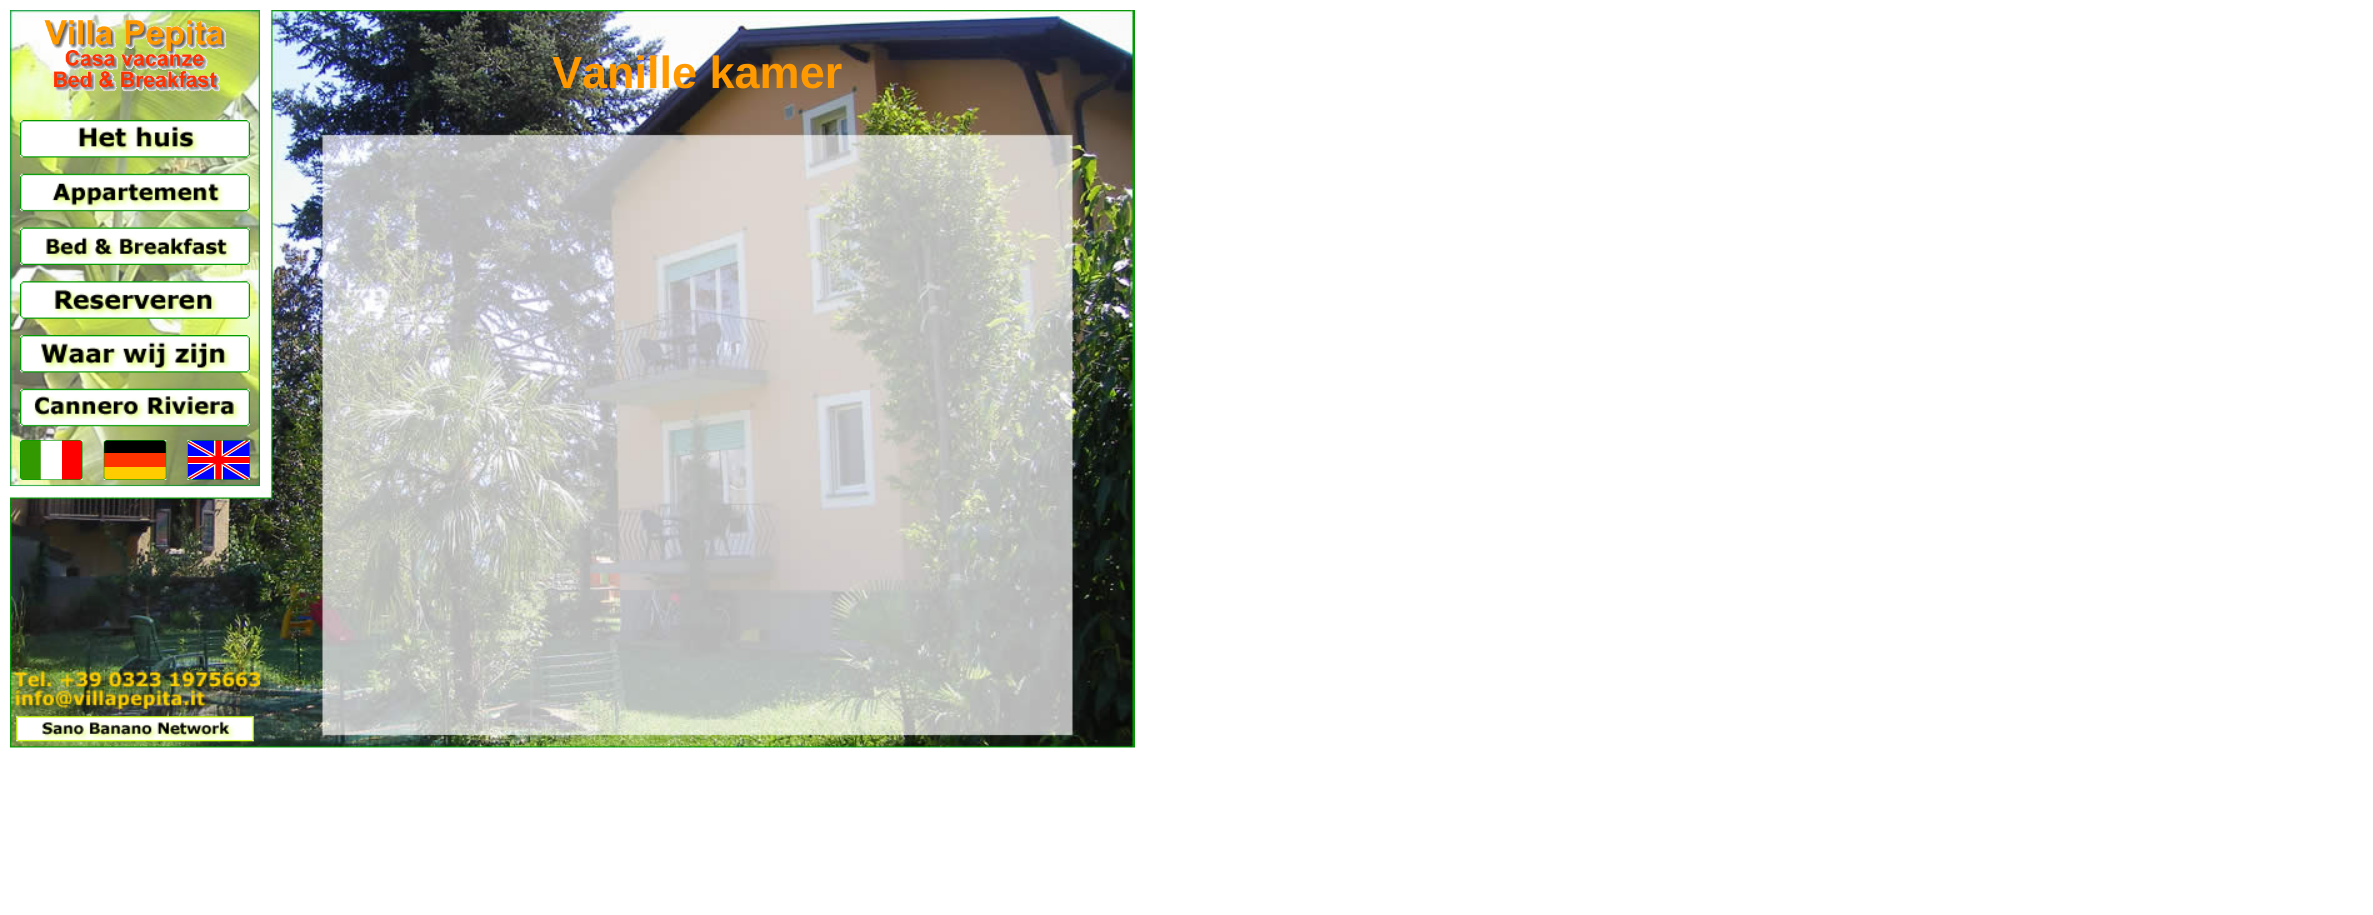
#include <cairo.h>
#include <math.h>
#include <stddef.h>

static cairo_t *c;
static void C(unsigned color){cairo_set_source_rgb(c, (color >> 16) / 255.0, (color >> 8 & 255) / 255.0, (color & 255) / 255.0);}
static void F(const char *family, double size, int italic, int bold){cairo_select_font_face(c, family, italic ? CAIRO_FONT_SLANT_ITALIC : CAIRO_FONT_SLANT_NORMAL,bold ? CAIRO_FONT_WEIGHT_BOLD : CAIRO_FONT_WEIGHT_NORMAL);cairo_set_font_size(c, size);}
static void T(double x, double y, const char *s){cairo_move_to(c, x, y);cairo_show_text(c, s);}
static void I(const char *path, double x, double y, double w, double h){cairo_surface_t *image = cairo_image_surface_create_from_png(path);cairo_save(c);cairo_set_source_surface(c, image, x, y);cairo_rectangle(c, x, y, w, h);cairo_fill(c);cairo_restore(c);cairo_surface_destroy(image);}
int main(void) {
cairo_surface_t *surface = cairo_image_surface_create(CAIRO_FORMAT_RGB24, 2373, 915);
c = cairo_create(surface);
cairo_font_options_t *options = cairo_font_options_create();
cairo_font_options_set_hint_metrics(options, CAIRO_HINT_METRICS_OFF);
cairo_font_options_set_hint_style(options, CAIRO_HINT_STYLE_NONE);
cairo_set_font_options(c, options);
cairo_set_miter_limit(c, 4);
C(0xffffff);
cairo_paint(c);
I("1.png",10,10,250,477);
I("2.png",44,20,183,72);
I("3.png",20,120,230,38);
I("4.png",20,173,230,39);
I("5.png",20,227,230,38);
I("6.png",20,281,230,38);
I("7.png",20,335,230,38);
I("8.png",20,388,230,39);
I("9.png",20,440,63,40);
I("10.png",103,440,64,40);
I("11.png",187,440,63,40);
I("12.png",260,10,875,738);
F("Liberation Sans",45,0,1);
C(0xff9900);
T(552,88,"Vanille kamer");
I("13.png",10,486,250,262);
I("14.png",16,716,238,26);
cairo_surface_write_to_png(surface, "o.png");
cairo_font_options_destroy(options);
cairo_destroy(c);
cairo_surface_destroy(surface);
return 0;
}
